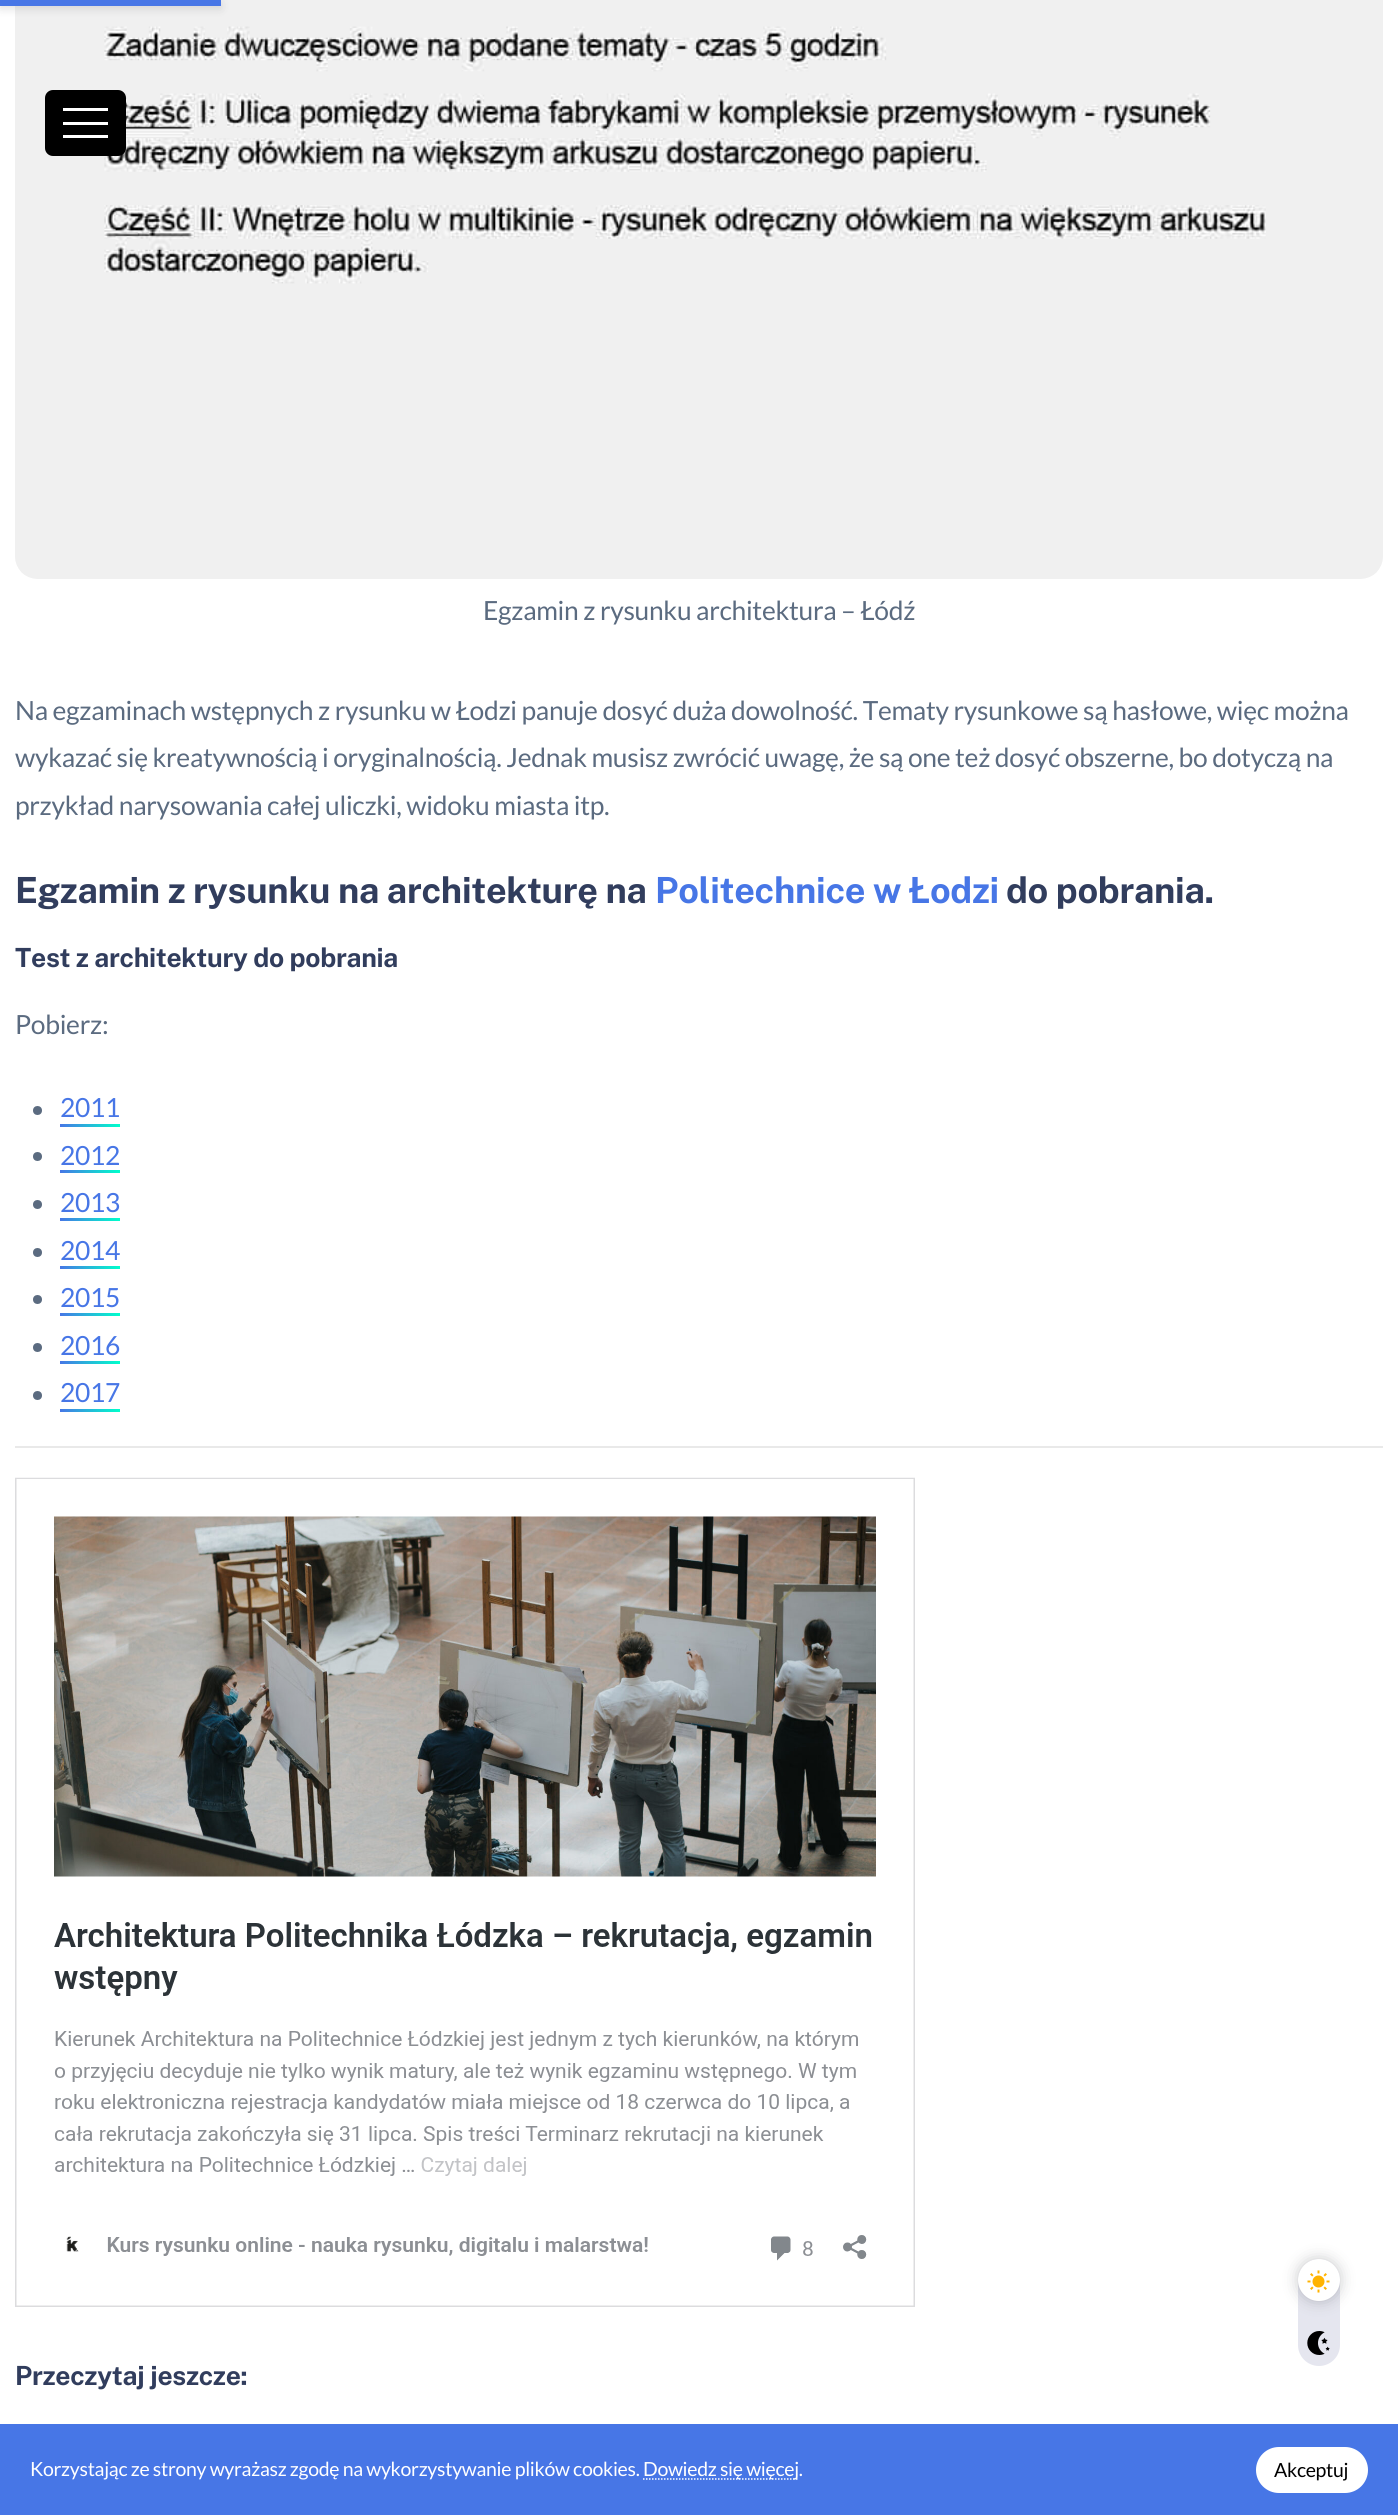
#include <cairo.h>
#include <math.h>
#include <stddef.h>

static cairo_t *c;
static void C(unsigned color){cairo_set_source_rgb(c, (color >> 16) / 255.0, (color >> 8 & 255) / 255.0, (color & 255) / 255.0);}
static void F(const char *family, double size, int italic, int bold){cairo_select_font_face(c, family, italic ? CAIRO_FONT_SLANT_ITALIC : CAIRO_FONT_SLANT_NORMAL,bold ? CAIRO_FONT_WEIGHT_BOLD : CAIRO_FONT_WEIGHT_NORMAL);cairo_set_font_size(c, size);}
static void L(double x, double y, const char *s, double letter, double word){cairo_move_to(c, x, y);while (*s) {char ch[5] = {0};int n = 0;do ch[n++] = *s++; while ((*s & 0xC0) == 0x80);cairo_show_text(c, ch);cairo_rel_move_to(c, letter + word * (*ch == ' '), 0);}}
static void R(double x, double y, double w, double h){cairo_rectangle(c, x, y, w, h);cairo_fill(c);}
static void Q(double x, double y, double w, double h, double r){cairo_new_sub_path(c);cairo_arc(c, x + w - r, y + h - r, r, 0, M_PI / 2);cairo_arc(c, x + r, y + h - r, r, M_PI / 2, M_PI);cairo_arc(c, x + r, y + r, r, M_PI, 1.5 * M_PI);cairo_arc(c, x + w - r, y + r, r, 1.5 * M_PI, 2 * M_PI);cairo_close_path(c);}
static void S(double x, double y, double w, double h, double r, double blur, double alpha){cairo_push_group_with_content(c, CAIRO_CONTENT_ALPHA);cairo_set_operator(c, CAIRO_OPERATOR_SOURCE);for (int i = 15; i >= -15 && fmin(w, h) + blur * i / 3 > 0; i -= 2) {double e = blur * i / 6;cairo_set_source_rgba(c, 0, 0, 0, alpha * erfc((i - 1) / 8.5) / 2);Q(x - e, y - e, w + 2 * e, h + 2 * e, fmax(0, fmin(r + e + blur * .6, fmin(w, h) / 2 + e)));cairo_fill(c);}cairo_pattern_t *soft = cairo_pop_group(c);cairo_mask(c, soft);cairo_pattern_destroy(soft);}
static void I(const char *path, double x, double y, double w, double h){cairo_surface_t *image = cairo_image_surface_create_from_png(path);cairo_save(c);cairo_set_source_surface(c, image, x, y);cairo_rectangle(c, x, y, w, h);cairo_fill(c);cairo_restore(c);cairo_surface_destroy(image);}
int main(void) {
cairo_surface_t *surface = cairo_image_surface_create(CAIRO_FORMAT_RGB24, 1398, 2515);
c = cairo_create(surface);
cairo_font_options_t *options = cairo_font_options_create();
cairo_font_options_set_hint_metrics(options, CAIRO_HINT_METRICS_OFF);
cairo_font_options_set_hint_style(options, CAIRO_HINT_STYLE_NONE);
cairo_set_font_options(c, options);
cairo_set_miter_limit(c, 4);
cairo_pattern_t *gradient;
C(0xffffff);
cairo_paint(c);
I("1.png",15,0,1368,579);
C(0x30323c);
S(0,3,221,6,0,4.5,.15);
C(0x4776e6);
R(0,0,221,6);
C(0x000000);
Q(45,90,81,66,8);
cairo_fill(c);
C(0xffffff);
R(63,108,45,3);
R(63,122,45,3);
R(63,135,45,3);
F("Lato",26.4,0,0);
C(0x5b6b80);
L(483,620,"Egzamin z rysunku architektura – Łódź",-.3,0);
L(15,720,"Na egzaminach wstępnych z rysunku w Łodzi panuje dosyć duża dowolność. Tematy rysunkowe są hasłowe, więc można",-.3,0);
L(15,767,"wykazać się kreatywnością i oryginalnością. Jednak musisz zwrócić uwagę, że są one też dosyć obszerne, bo dotyczą na",-.3,0);
L(15,815,"przykład narysowania całej uliczki, widoku miasta itp.",-.3,0);
F("Public Sans Thin",36,0,0);
C(0x313d5d);
L(15,903,"Egzamin z rysunku na architekturę na",-.3,0);
C(0x4776e6);
L(655,903,"Politechnice w Łodzi",-.3,0);
C(0x313d5d);
L(1006,903,"do pobrania.",-.3,0);
F("Public Sans Thin",26.4,0,0);
L(15,967,"Test z architektury do pobrania",-.3,0);
F("Lato",26.4,0,0);
C(0x5b6b80);
L(15,1034,"Pobierz:",-.3,0);
cairo_new_path(c);
cairo_arc(c,37.5,1110.5,4.5,0,2 * M_PI);
cairo_fill(c);
C(0x4776e6);
L(60,1117,"2011",-.3,0);
gradient = cairo_pattern_create_linear(60,1125,120,1125);
cairo_pattern_add_color_stop_rgba(gradient,0,0.278,0.463,0.902,1);
cairo_pattern_add_color_stop_rgba(gradient,1,0,1,0.796,1);
cairo_set_source(c,gradient);
cairo_pattern_destroy(gradient);
R(60,1124,60,3);
C(0x5b6b80);
cairo_new_path(c);
cairo_arc(c,37.5,1156.5,4.5,0,2 * M_PI);
cairo_fill(c);
C(0x4776e6);
L(60,1165,"2012",-.3,0);
gradient = cairo_pattern_create_linear(60,1172,120,1172);
cairo_pattern_add_color_stop_rgba(gradient,0,0.278,0.463,0.902,1);
cairo_pattern_add_color_stop_rgba(gradient,1,0,1,0.796,1);
cairo_set_source(c,gradient);
cairo_pattern_destroy(gradient);
R(60,1170,60,3);
C(0x5b6b80);
cairo_new_path(c);
cairo_arc(c,37.5,1204.5,4.5,0,2 * M_PI);
cairo_fill(c);
C(0x4776e6);
L(60,1212,"2013",-.3,0);
gradient = cairo_pattern_create_linear(60,1220,120,1220);
cairo_pattern_add_color_stop_rgba(gradient,0,0.278,0.463,0.902,1);
cairo_pattern_add_color_stop_rgba(gradient,1,0,1,0.796,1);
cairo_set_source(c,gradient);
cairo_pattern_destroy(gradient);
R(60,1218,60,3);
C(0x5b6b80);
cairo_new_path(c);
cairo_arc(c,37.5,1252.5,4.5,0,2 * M_PI);
cairo_fill(c);
C(0x4776e6);
L(60,1260,"2014",-.3,0);
gradient = cairo_pattern_create_linear(60,1268,120,1268);
cairo_pattern_add_color_stop_rgba(gradient,0,0.278,0.463,0.902,1);
cairo_pattern_add_color_stop_rgba(gradient,1,0,1,0.796,1);
cairo_set_source(c,gradient);
cairo_pattern_destroy(gradient);
R(60,1266,60,3);
C(0x5b6b80);
cairo_new_path(c);
cairo_arc(c,37.5,1299.5,4.5,0,2 * M_PI);
cairo_fill(c);
C(0x4776e6);
L(60,1307,"2015",-.3,0);
gradient = cairo_pattern_create_linear(60,1314,120,1314);
cairo_pattern_add_color_stop_rgba(gradient,0,0.278,0.463,0.902,1);
cairo_pattern_add_color_stop_rgba(gradient,1,0,1,0.796,1);
cairo_set_source(c,gradient);
cairo_pattern_destroy(gradient);
R(60,1313,60,3);
C(0x5b6b80);
cairo_new_path(c);
cairo_arc(c,37.5,1347.5,4.5,0,2 * M_PI);
cairo_fill(c);
C(0x4776e6);
L(60,1355,"2016",-.3,0);
gradient = cairo_pattern_create_linear(60,1362,120,1362);
cairo_pattern_add_color_stop_rgba(gradient,0,0.278,0.463,0.902,1);
cairo_pattern_add_color_stop_rgba(gradient,1,0,1,0.796,1);
cairo_set_source(c,gradient);
cairo_pattern_destroy(gradient);
R(60,1361,60,3);
C(0x5b6b80);
cairo_new_path(c);
cairo_arc(c,37.5,1395.5,4.5,0,2 * M_PI);
cairo_fill(c);
C(0x4776e6);
L(60,1402,"2017",-.3,0);
gradient = cairo_pattern_create_linear(60,1410,120,1410);
cairo_pattern_add_color_stop_rgba(gradient,0,0.278,0.463,0.902,1);
cairo_pattern_add_color_stop_rgba(gradient,1,0,1,0.796,1);
cairo_set_source(c,gradient);
cairo_pattern_destroy(gradient);
R(60,1409,60,3);
C(0xe9e9e9);
R(15,1446,1368,2);
I("2.png",15,1477,900,830);
F("Public Sans Thin",26.4,0,0);
C(0x313d5d);
L(15,2385,"Przeczytaj jeszcze:",-.3,0);
C(0xe5e6ef);
Q(1298,2259,42,107,21);
cairo_fill(c);
C(0x2f3139);
S(1298,2259,42,42,21,7.5,.26);
C(0xffffff);
cairo_arc(c,1319,2280,21,0,2 * M_PI);
cairo_fill(c);
I("3.png",1307,2270,23,23);
I("4.png",1307,2331,23,24);
C(0x4776e6);
R(0,2424,1398,91);
F("Lato",19.5,0,0);
C(0xffffff);
L(30,2476,"Korzystając ze strony wyrażasz zgodę na wykorzystywanie plików cookies.",-.3,0);
cairo_new_path(c);
cairo_move_to(c,643,2479);
cairo_line_to(c,799,2479);
cairo_set_line_width(c,1.5);
cairo_set_dash(c,(double[]){1.5,1.5},2,0);
cairo_stroke(c);
L(643,2476,"Dowiedz się więcej.",-.3,0);
Q(1257,2448,110,44,22);
cairo_fill_preserve(c);
cairo_set_line_width(c,2);
cairo_set_dash(c,NULL,0,0);
cairo_stroke(c);
C(0x000000);
L(1274,2477,"Akceptuj",-.3,0);
cairo_surface_write_to_png(surface, "o.png");
cairo_font_options_destroy(options);
cairo_destroy(c);
cairo_surface_destroy(surface);
return 0;
}
